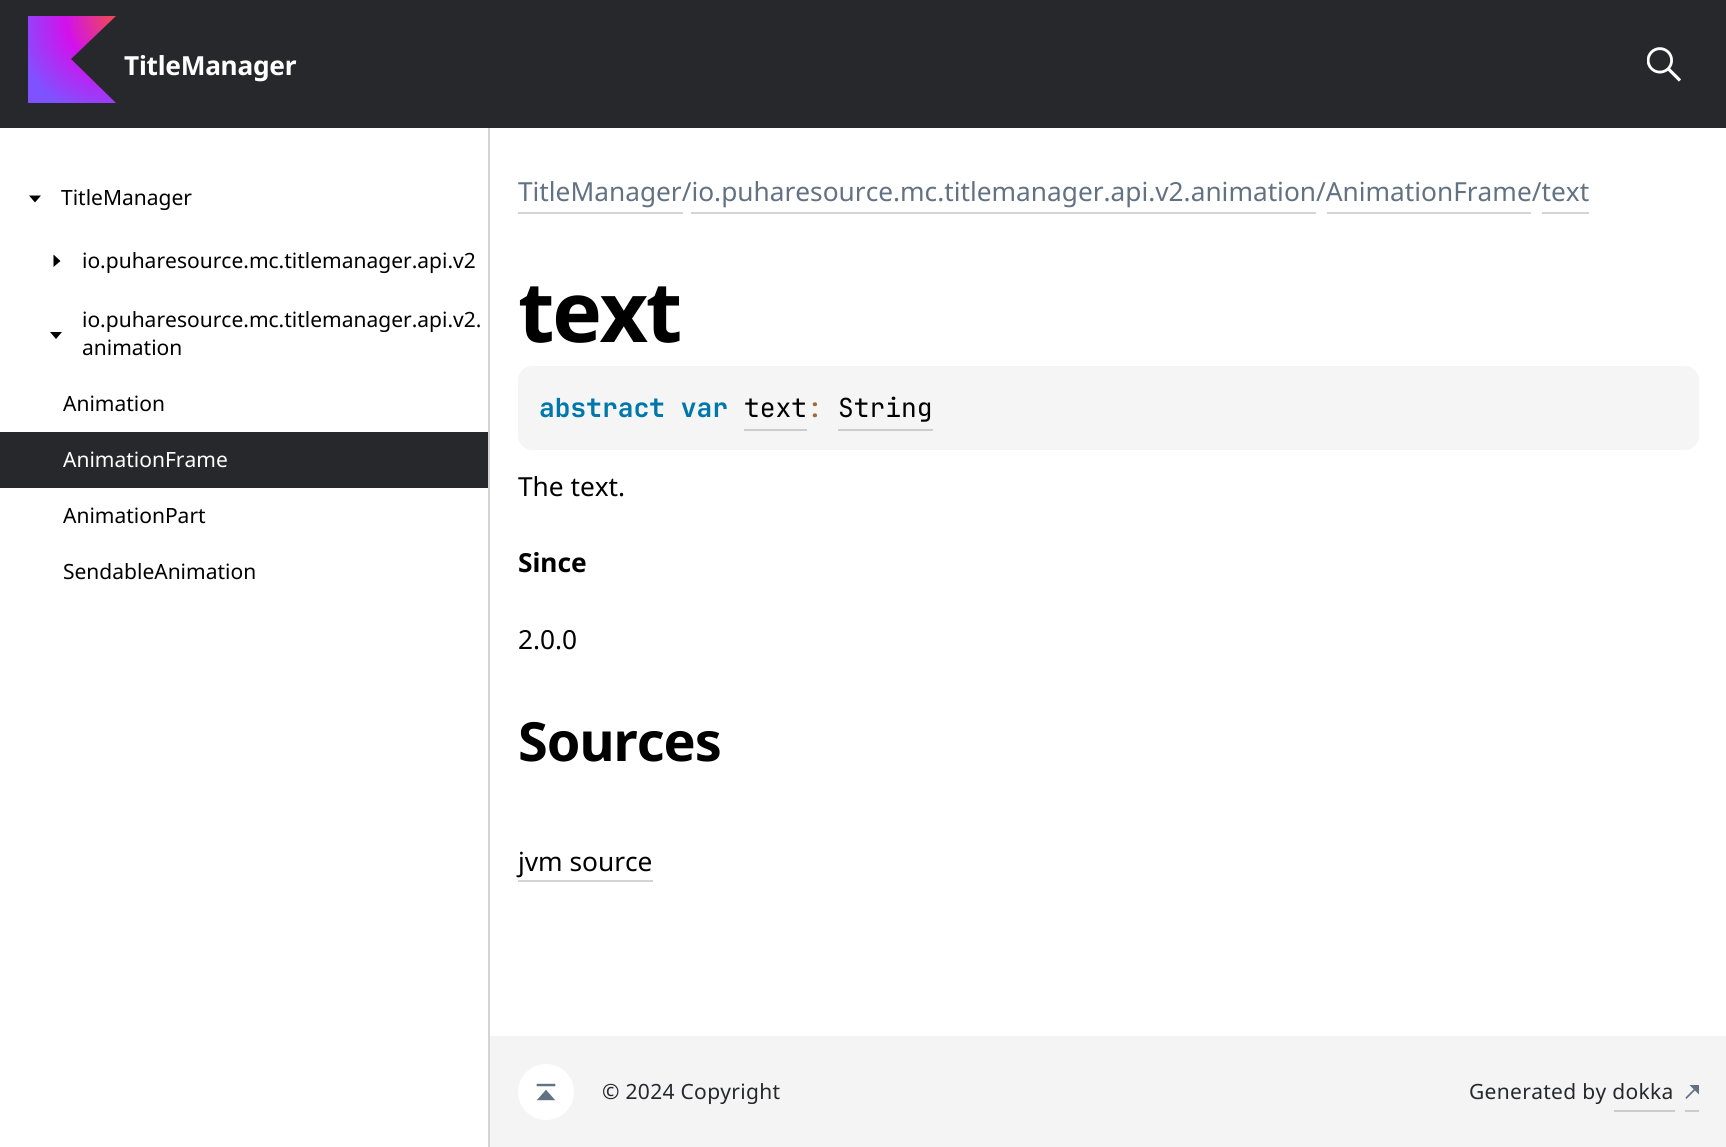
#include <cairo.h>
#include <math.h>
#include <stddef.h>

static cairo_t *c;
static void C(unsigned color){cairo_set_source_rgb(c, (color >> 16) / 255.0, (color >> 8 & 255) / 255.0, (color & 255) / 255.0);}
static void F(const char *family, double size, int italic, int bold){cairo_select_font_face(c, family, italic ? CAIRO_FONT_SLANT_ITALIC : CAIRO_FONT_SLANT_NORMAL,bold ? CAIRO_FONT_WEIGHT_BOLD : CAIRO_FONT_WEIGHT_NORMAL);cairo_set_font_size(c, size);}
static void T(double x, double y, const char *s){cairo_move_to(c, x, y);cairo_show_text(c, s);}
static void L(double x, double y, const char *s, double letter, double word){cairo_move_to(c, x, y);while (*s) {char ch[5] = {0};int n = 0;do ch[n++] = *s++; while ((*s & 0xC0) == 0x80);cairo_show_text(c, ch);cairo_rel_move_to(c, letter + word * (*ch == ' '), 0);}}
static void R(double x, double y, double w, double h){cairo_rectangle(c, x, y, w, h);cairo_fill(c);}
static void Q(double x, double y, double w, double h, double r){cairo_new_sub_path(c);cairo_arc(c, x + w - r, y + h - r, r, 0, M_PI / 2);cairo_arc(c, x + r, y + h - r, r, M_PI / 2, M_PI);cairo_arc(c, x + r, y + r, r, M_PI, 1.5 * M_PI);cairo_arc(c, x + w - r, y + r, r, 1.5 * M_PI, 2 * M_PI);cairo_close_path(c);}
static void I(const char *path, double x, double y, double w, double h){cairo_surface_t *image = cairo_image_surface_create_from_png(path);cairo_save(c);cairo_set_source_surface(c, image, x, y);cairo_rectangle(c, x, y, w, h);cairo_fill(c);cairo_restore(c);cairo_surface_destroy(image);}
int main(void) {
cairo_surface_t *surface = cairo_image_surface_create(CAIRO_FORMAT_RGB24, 1726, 1147);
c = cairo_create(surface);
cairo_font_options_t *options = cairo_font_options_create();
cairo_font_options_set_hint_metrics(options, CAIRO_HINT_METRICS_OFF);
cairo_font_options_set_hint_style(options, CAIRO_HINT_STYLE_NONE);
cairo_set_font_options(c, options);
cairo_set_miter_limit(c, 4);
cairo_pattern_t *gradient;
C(0xffffff);
cairo_paint(c);
C(0x27282c);
R(0,0,1726,128);
gradient = cairo_pattern_create_radial(113,19,0,113,19,100);
cairo_pattern_add_color_stop_rgba(gradient,0,0.937,0.282,0.341,1);
cairo_pattern_add_color_stop_rgba(gradient,.47,0.824,0.067,0.925,1);
cairo_pattern_add_color_stop_rgba(gradient,1,0.498,0.322,1,1);
cairo_set_source(c,gradient);
cairo_pattern_destroy(gradient);
cairo_new_path(c);
cairo_move_to(c,116,103);
cairo_line_to(c,28,103);
cairo_line_to(c,28,16);
cairo_line_to(c,116,16);
cairo_line_to(c,71,59);
cairo_close_path(c);
cairo_fill(c);
F("Noto Sans",26.25,0,1);
C(0xffffff);
L(124,75,"TitleManager",-.25,0);
I("1.png",1647,47,34,35);
C(0xd4d4d5);
R(488,128,2,1019);
C(0x000000);
cairo_new_path(c);
cairo_move_to(c,35,202.5);
cairo_line_to(c,29,195.5);
cairo_line_to(c,41,195.5);
cairo_close_path(c);
cairo_fill(c);
F("Noto Sans",21,0,0);
T(61,205,"TitleManager");
cairo_new_path(c);
cairo_move_to(c,60.5,261);
cairo_line_to(c,53.5,267);
cairo_line_to(c,53.5,254.5);
cairo_close_path(c);
cairo_fill(c);
T(82,268,"io.puharesource.mc.titlemanager.api.v2");
cairo_new_path(c);
cairo_move_to(c,56,339);
cairo_line_to(c,50,332);
cairo_line_to(c,62,332);
cairo_close_path(c);
cairo_fill(c);
T(82,327,"io.puharesource.mc.titlemanager.api.v2.");
T(82,355,"animation");
T(63,411,"Animation");
C(0x27282c);
R(0,432,488,56);
C(0xffffff);
T(63,467,"AnimationFrame");
C(0x000000);
T(63,523,"AnimationPart");
T(63,579,"SendableAnimation");
F("Noto Sans",26.25,0,0);
C(0x637282);
T(518,201,"TitleManager/io.puharesource.mc.titlemanager.api.v2.animation/AnimationFrame/text");
C(0xd4d4d5);
R(518,212,165,2);
R(691,212,625,2);
R(1327,212,204,2);
R(1542,212,47,2);
F("Noto Sans",84,0,1);
C(0x000000);
L(518,342,"text",-2.5,0);
C(0xf5f5f5);
Q(518,366,1181,84,14);
cairo_fill(c);
F("JetBrains Mono",26.25,0,1);
C(0x0077aa);
T(539,417,"abstract var");
F("JetBrains Mono",26.25,0,0);
C(0x000000);
T(744,417,"text");
C(0xcccccd);
R(744,429,63,2);
C(0x9a6e3a);
T(807,417,":");
C(0x000000);
T(838,417,"String");
C(0xcccccd);
R(838,429,95,2);
F("Noto Sans",26.25,0,0);
C(0x000000);
T(518,496,"The text.");
F("Noto Sans",26.25,0,1);
T(518,572,"Since");
F("Noto Sans",26.25,0,0);
T(518,649,"2.0.0");
F("Noto Sans",54,0,1);
L(518,761,"Sources",-1,0);
F("Noto Sans",26.25,0,0);
T(518,871,"jvm source");
C(0xd4d4d5);
R(518,880,135,2);
C(0xf4f4f4);
R(490,1036,1236,111);
C(0xffffff);
cairo_new_path(c);
cairo_arc(c,546,1092,28,0,2 * M_PI);
cairo_fill(c);
I("2.png",536,1083,20,18);
F("Noto Sans",21,0,0);
C(0x27282c);
L(602,1099,"© 2024 Copyright",.3,0);
L(1469,1099,"Generated by dokka",.3,0);
I("3.png",1685,1085,14,14);
C(0xcbcbcc);
R(1614,1110,61,2);
R(1685,1110,14,2);
cairo_surface_write_to_png(surface, "o.png");
cairo_font_options_destroy(options);
cairo_destroy(c);
cairo_surface_destroy(surface);
return 0;
}
